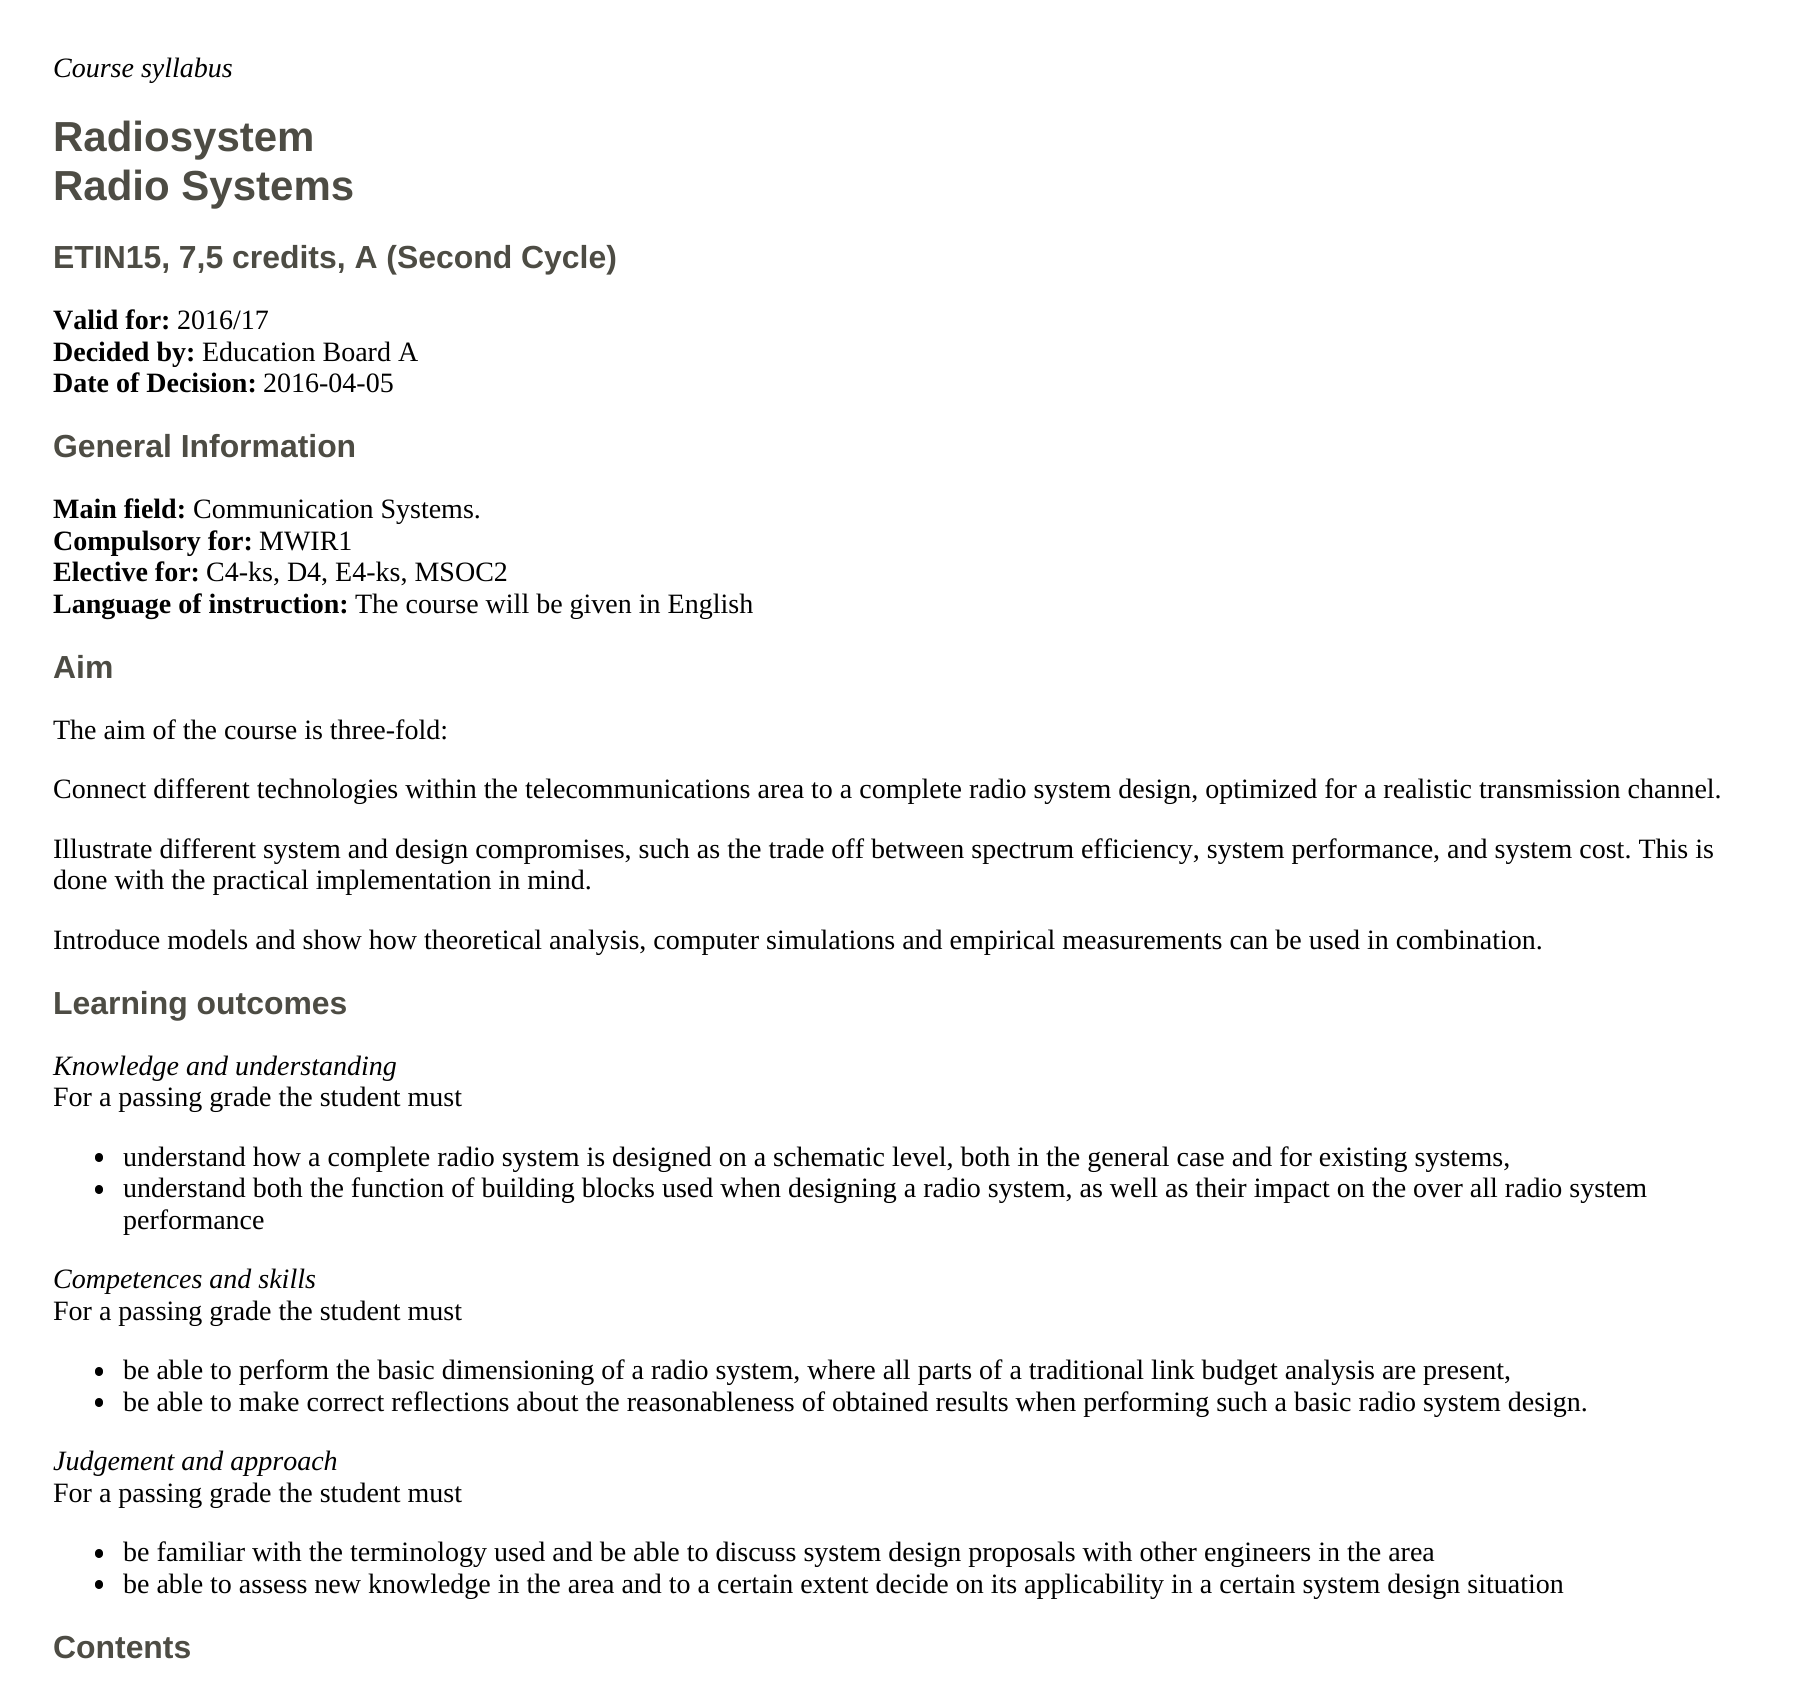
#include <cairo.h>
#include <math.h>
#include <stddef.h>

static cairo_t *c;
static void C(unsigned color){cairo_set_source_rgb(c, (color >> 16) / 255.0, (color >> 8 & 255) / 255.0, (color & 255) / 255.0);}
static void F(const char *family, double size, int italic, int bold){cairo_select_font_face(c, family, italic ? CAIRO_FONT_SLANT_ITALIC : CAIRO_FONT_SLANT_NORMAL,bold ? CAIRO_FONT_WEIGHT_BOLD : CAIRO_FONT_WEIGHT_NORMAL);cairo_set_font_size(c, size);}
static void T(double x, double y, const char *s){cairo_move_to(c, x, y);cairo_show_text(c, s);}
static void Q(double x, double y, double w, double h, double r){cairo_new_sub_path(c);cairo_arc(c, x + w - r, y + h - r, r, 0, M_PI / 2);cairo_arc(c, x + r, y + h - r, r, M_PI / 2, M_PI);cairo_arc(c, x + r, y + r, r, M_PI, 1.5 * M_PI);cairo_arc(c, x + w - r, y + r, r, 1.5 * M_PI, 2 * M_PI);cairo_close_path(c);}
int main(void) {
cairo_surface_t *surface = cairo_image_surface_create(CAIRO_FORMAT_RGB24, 1814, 1703);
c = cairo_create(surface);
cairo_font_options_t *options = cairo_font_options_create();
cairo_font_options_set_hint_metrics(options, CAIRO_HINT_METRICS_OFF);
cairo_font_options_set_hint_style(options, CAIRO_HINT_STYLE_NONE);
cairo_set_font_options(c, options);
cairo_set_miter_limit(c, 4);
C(0xffffff);
cairo_paint(c);
F("Liberation Serif",28,1,0);
C(0x000000);
T(53,77,"Course syllabus");
F("Liberation Sans",42,0,1);
C(0x4d4c44);
T(53,151,"Radiosystem");
T(53,200,"Radio Systems");
F("Liberation Sans",31.9,0,1);
T(53,268,"ETIN15, 7,5 credits, A (Second Cycle)");
F("Liberation Serif",28,0,1);
C(0x000000);
T(53,329,"Valid for:");
F("Liberation Serif",28,0,0);
T(177,329,"2016/17");
F("Liberation Serif",28,0,1);
T(53,361,"Decided by:");
F("Liberation Serif",28,0,0);
T(202,361,"Education Board A");
F("Liberation Serif",28,0,1);
T(53,392,"Date of Decision:");
F("Liberation Serif",28,0,0);
T(263,392,"2016-04-05");
F("Liberation Sans",31.9,0,1);
C(0x4d4c44);
T(53,457,"General Information");
F("Liberation Serif",28,0,1);
C(0x000000);
T(53,518,"Main field:");
F("Liberation Serif",28,0,0);
T(193,518,"Communication Systems.");
F("Liberation Serif",28,0,1);
T(53,550,"Compulsory for:");
F("Liberation Serif",28,0,0);
T(259,550,"MWIR1");
F("Liberation Serif",28,0,1);
T(53,581,"Elective for:");
F("Liberation Serif",28,0,0);
T(206,581,"C4-ks, D4, E4-ks, MSOC2");
F("Liberation Serif",28,0,1);
T(53,613,"Language of instruction:");
F("Liberation Serif",28,0,0);
T(355,613,"The course will be given in English");
F("Liberation Sans",31.9,0,1);
C(0x4d4c44);
T(53,678,"Aim");
F("Liberation Serif",28,0,0);
C(0x000000);
T(53,739,"The aim of the course is three-fold:");
T(53,798,"Connect different technologies within the telecommunications area to a complete radio system design, optimized for a realistic transmission channel.");
T(53,858,"Illustrate different system and design compromises, such as the trade off between spectrum efficiency, system performance, and system cost. This is");
T(53,889,"done with the practical implementation in mind.");
T(53,949,"Introduce models and show how theoretical analysis, computer simulations and empirical measurements can be used in combination.");
F("Liberation Sans",31.9,0,1);
C(0x4d4c44);
T(53,1014,"Learning outcomes");
F("Liberation Serif",28,1,0);
C(0x000000);
T(53,1075,"Knowledge and understanding");
F("Liberation Serif",28,0,0);
T(53,1106,"For a passing grade the student must");
Q(95,1153,8,9,4);
cairo_fill(c);
T(123,1166,"understand how a complete radio system is designed on a schematic level, both in the general case and for existing systems,");
Q(95,1185,8,9,4);
cairo_fill(c);
T(123,1197,"understand both the function of building blocks used when designing a radio system, as well as their impact on the over all radio system");
T(123,1229,"performance");
F("Liberation Serif",28,1,0);
T(53,1288,"Competences and skills");
F("Liberation Serif",28,0,0);
T(53,1320,"For a passing grade the student must");
Q(95,1367,8,9,4);
cairo_fill(c);
T(123,1379,"be able to perform the basic dimensioning of a radio system, where all parts of a traditional link budget analysis are present,");
Q(95,1398,8,9,4);
cairo_fill(c);
T(123,1411,"be able to make correct reflections about the reasonableness of obtained results when performing such a basic radio system design.");
F("Liberation Serif",28,1,0);
T(53,1470,"Judgement and approach");
F("Liberation Serif",28,0,0);
T(53,1502,"For a passing grade the student must");
Q(95,1549,8,9,4);
cairo_fill(c);
T(123,1561,"be familiar with the terminology used and be able to discuss system design proposals with other engineers in the area");
Q(95,1580,8,9,4);
cairo_fill(c);
T(123,1593,"be able to assess new knowledge in the area and to a certain extent decide on its applicability in a certain system design situation");
F("Liberation Sans",31.9,0,1);
C(0x4d4c44);
T(53,1658,"Contents");
cairo_surface_write_to_png(surface, "o.png");
cairo_font_options_destroy(options);
cairo_destroy(c);
cairo_surface_destroy(surface);
return 0;
}
